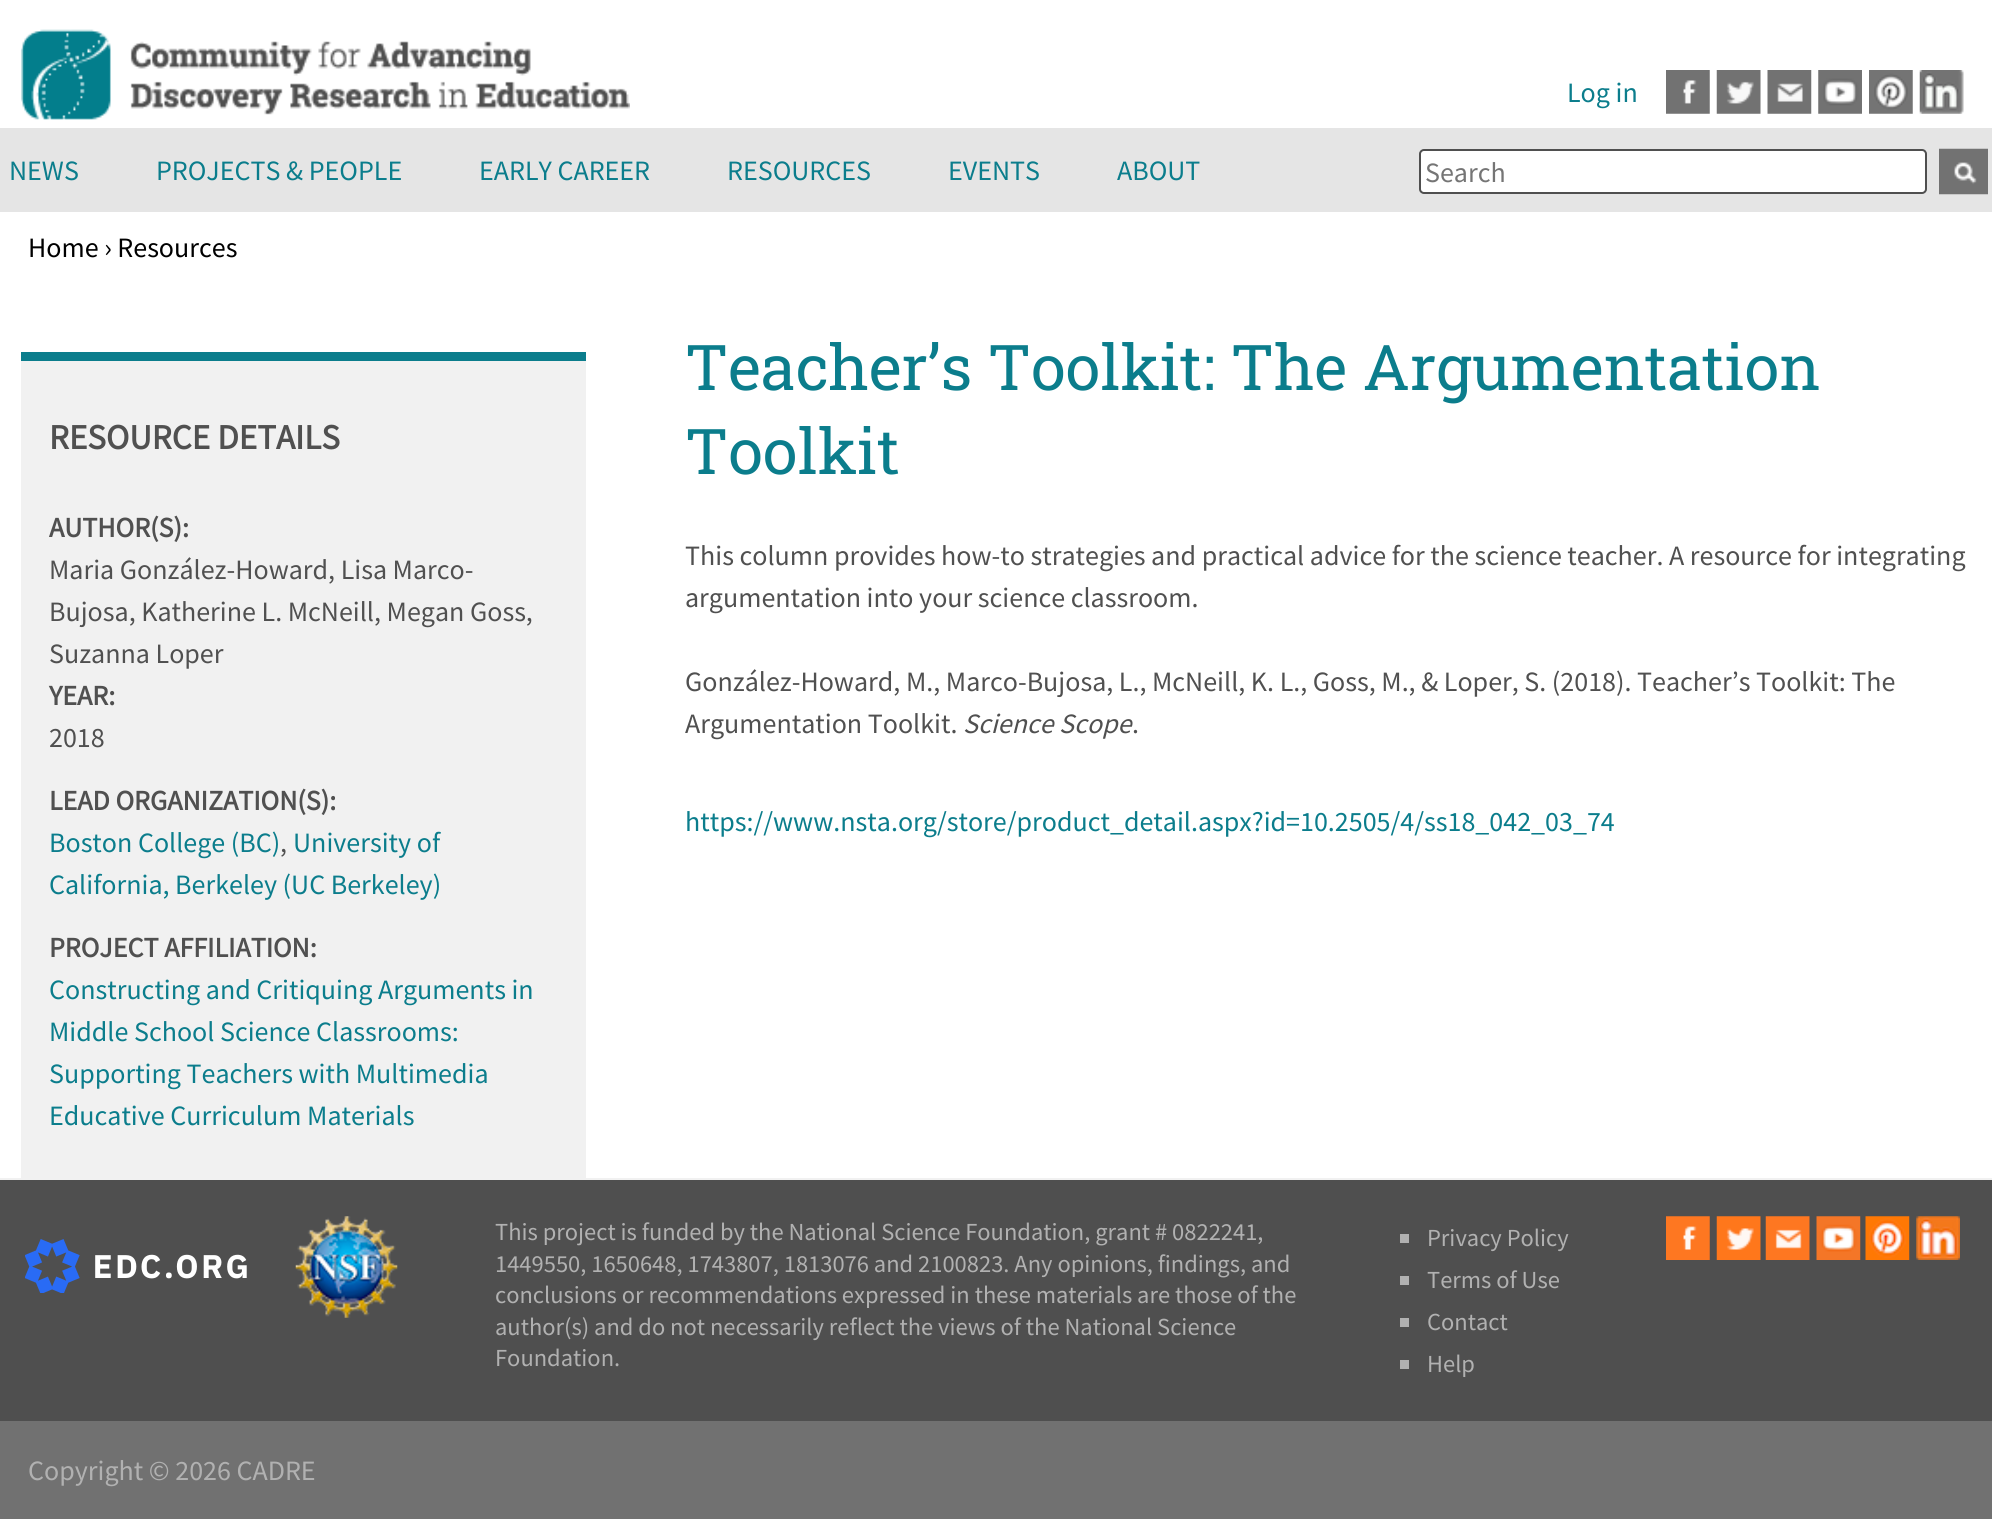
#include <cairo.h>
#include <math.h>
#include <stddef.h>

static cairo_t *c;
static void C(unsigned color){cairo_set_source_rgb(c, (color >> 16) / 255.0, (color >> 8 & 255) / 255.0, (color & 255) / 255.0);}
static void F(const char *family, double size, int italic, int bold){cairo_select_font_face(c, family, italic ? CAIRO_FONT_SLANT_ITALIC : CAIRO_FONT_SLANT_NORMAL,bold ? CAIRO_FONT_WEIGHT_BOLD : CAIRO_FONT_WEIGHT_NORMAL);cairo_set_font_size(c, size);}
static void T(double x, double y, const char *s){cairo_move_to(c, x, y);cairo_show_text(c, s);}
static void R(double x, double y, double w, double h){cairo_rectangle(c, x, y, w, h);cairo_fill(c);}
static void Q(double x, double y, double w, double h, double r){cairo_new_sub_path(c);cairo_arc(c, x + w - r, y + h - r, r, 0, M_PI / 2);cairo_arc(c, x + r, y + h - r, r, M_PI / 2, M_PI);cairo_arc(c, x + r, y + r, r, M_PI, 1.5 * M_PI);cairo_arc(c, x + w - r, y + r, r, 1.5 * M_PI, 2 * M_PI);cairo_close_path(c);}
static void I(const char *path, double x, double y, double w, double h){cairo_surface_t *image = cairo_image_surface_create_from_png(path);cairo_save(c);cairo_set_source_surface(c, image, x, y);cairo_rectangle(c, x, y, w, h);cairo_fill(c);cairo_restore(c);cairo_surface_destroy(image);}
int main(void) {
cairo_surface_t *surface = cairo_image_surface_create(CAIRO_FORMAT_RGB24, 1992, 1527);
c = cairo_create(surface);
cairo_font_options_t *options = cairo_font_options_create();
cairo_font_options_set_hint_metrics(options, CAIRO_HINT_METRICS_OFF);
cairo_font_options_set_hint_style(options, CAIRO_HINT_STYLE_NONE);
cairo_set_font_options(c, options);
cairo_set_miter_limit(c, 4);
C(0xffffff);
cairo_paint(c);
I("1.png",21,29,609,91);
F("Source Sans Pro",28,0,0);
C(0x0b7d8c);
T(1567,102,"Log in");
I("2.png",1666,70,44,44);
I("3.png",1716,70,45,44);
I("4.png",1767,70,45,44);
I("5.png",1818,70,44,44);
I("6.png",1869,70,44,44);
I("7.png",1919,70,45,44);
C(0xe5e5e5);
R(0,128,1992,84);
C(0x0b7d8c);
T(9,180,"NEWS");
T(156,180,"PROJECTS & PEOPLE");
T(479,180,"EARLY CAREER");
T(727,180,"RESOURCES");
T(948,180,"EVENTS");
T(1117,180,"ABOUT");
C(0xffffff);
Q(1420,150,506,43,4);
cairo_fill_preserve(c);
C(0x4f4f4f);
cairo_stroke(c);
C(0x757575);
T(1425,182,"Search");
I("8.png",1939,148,49,47);
C(0x000000);
T(28,257,"Home › Resources");
C(0xf1f1f1);
R(21,361,565,817);
C(0x0b7d8c);
R(21,352,565,9);
F("Source Sans Pro",35,0,1);
C(0x505050);
T(49,449,"RESOURCE DETAILS");
F("Source Sans Pro",28,0,1);
T(49,537,"AUTHOR(S):");
F("Source Sans Pro",28,0,0);
T(49,579,"Maria González-Howard, Lisa Marco-");
T(49,621,"Bujosa, Katherine L. McNeill, Megan Goss,");
T(49,663,"Suzanna Loper");
F("Source Sans Pro",28,0,1);
T(49,705,"YEAR:");
F("Source Sans Pro",28,0,0);
T(49,747,"2018");
F("Source Sans Pro",28,0,1);
T(49,810,"LEAD ORGANIZATION(S):");
F("Source Sans Pro",28,0,0);
C(0x0b7d8c);
T(49,852,"Boston College (BC)");
C(0x505050);
T(280,852,",");
C(0x0b7d8c);
T(293,852,"University of");
T(49,894,"California, Berkeley (UC Berkeley)");
F("Source Sans Pro",28,0,1);
C(0x505050);
T(49,957,"PROJECT AFFILIATION:");
F("Source Sans Pro",28,0,0);
C(0x0b7d8c);
T(49,999,"Constructing and Critiquing Arguments in");
T(49,1041,"Middle School Science Classrooms:");
T(49,1083,"Supporting Teachers with Multimedia");
T(49,1125,"Educative Curriculum Materials");
F("Roboto Slab",63,0,0);
T(685,390,"Teacher’s Toolkit: The Argumentation");
T(685,474,"Toolkit");
F("Source Sans Pro",28,0,0);
C(0x505050);
T(685,565,"This column provides how-to strategies and practical advice for the science teacher. A resource for integrating");
T(685,607,"argumentation into your science classroom.");
T(685,691,"González-Howard, M., Marco-Bujosa, L., McNeill, K. L., Goss, M., & Loper, S. (2018). Teacher’s Toolkit: The");
T(685,733,"Argumentation Toolkit.");
F("Source Sans Pro",28,1,0);
T(963,733,"Science Scope");
F("Source Sans Pro",28,0,0);
T(1132,733,".");
C(0x0b7d8c);
T(685,831,"https://www.nsta.org/store/product_detail.aspx?id=10.2505/4/ss18_042_03_74");
C(0x4f4f4f);
R(0,1180,1992,241);
C(0xf1f1f1);
R(0,1178,1992,2);
I("9.png",25,1239,222,54);
I("10.png",295,1216,103,102);
F("Source Sans Pro",24.5,0,0);
C(0xb1b1b1);
T(495,1240,"This project is funded by the National Science Foundation, grant # 0822241,");
T(495,1272,"1449550, 1650648, 1743807, 1813076 and 2100823. Any opinions, findings, and");
T(495,1303,"conclusions or recommendations expressed in these materials are those of the");
T(495,1335,"author(s) and do not necessarily reflect the views of the National Science");
T(495,1366,"Foundation.");
R(1400,1234,9,9);
T(1427,1246,"Privacy Policy");
R(1400,1276,9,9);
T(1427,1288,"Terms of Use");
R(1400,1318,9,9);
T(1427,1330,"Contact");
R(1400,1360,9,9);
T(1427,1372,"Help");
I("11.png",1666,1216,44,44);
I("12.png",1716,1216,45,44);
I("13.png",1765,1216,45,44);
I("14.png",1816,1216,45,44);
I("15.png",1865,1216,45,44);
I("16.png",1916,1216,44,44);
C(0x717171);
R(0,1421,1992,98);
F("Source Sans Pro",28,0,0);
C(0xb1b1b1);
T(28,1480,"Copyright © 2026 CADRE");
cairo_surface_write_to_png(surface, "o.png");
cairo_font_options_destroy(options);
cairo_destroy(c);
cairo_surface_destroy(surface);
return 0;
}
